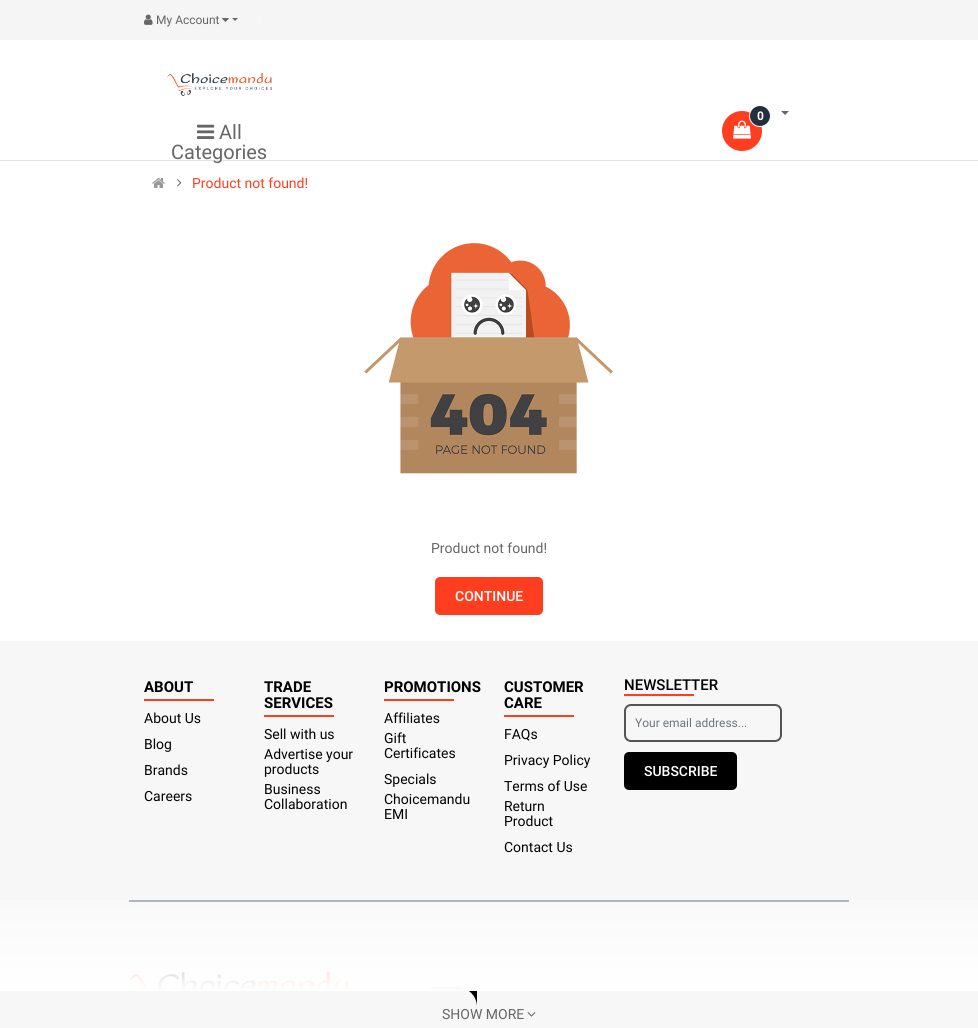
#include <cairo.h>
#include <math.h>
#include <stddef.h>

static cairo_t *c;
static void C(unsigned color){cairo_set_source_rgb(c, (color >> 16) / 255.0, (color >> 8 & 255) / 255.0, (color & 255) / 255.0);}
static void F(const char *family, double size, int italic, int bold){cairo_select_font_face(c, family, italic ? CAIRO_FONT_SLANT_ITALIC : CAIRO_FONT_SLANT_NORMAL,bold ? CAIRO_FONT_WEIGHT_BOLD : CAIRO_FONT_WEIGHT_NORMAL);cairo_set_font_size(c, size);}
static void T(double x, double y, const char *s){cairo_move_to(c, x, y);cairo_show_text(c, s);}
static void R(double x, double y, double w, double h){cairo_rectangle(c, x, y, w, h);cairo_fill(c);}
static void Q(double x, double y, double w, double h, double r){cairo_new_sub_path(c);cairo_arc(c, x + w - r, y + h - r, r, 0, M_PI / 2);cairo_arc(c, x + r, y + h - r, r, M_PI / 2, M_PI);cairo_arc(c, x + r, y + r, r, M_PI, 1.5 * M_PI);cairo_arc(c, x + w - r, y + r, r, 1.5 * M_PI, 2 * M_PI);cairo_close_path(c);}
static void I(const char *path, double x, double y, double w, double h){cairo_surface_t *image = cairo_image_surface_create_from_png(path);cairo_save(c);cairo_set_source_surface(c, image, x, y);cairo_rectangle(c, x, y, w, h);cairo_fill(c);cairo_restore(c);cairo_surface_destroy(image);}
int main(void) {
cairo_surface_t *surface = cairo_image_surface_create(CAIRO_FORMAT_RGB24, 978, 1028);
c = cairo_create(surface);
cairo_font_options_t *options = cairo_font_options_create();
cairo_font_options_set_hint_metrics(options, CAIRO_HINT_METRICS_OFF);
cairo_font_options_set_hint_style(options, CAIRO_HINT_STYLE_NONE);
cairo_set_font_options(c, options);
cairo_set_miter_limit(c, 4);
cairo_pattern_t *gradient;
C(0xffffff);
cairo_paint(c);
C(0xf5f5f5);
R(0,0,978,40);
I("1.png",144,14,9,11);
F("Roboto",12,0,0);
C(0x666666);
T(156,24,"My Account");
I("2.png",222,18,7,4);
cairo_new_path(c);
cairo_move_to(c,232,18);
cairo_line_to(c,238,18);
cairo_line_to(c,235,21);
cairo_close_path(c);
cairo_fill(c);
C(0xf9f9f9);
R(258,16,1,11);
I("3.png",167,73,105,23);
C(0xff3e20);
cairo_arc(c,742,131,20,0,2 * M_PI);
cairo_fill(c);
I("4.png",733,120,18,19);
C(0x232f3e);
cairo_arc(c,760,116,10.5,0,2 * M_PI);
cairo_fill_preserve(c);
C(0xffffff);
cairo_set_line_width(c,1);
cairo_stroke(c);
F("Roboto",12,0,1);
T(757,120,"0");
C(0x666666);
cairo_new_path(c);
cairo_move_to(c,781,111);
cairo_line_to(c,789,111);
cairo_line_to(c,785,115);
cairo_close_path(c);
cairo_fill(c);
C(0xe5e5e5);
R(0,160,978,1);
I("5.png",197,124,18,15);
F("Roboto",20,0,0);
C(0x666666);
T(219,139,"All");
T(171,159,"Categories");
I("6.png",152,178,13,10);
I("7.png",177,179,5,8);
F("Roboto",14,0,0);
C(0xff3e20);
T(192,188,"Product not found!");
I("8.png",364,243,249,231);
C(0x666666);
T(431,553,"Product not found!");
C(0xff3e20);
Q(435,577,108,38,5);
cairo_fill(c);
F("Roboto Medium",14,0,0);
C(0xffffff);
T(455,601,"CONTINUE");
C(0xf7f7f7);
R(0,641,978,387);
F("Roboto",15,0,1);
C(0x000000);
T(144,692,"ABOUT");
C(0xff3e20);
R(144,699,70,2);
F("Roboto",14,0,0);
C(0x000000);
T(144,723,"About Us");
T(144,749,"Blog");
T(144,775,"Brands");
T(144,801,"Careers");
F("Roboto",15,0,1);
T(264,692,"TRADE");
T(264,708,"SERVICES");
C(0xff3e20);
R(264,715,70,2);
F("Roboto",14,0,0);
C(0x000000);
T(264,739,"Sell with us");
T(264,759,"Advertise your");
T(264,774,"products");
T(264,794,"Business");
T(264,809,"Collaboration");
F("Roboto",15,0,1);
T(384,692,"PROMOTIONS");
C(0xff3e20);
R(384,699,70,2);
F("Roboto",14,0,0);
C(0x000000);
T(384,723,"Affiliates");
T(384,743,"Gift");
T(384,758,"Certificates");
T(384,784,"Specials");
T(384,804,"Choicemandu");
T(384,819,"EMI");
F("Roboto",15,0,1);
T(504,692,"CUSTOMER");
T(504,708,"CARE");
C(0xff3e20);
R(504,715,70,2);
F("Roboto",14,0,0);
C(0x000000);
T(504,739,"FAQs");
T(504,765,"Privacy Policy");
T(504,791,"Terms of Use");
T(504,811,"Return");
T(504,826,"Product");
T(504,852,"Contact Us");
F("Roboto Medium",15,0,0);
T(624,690,"NEWSLETTER");
C(0xff3e20);
R(624,694,70,2);
Q(625,705,156,36,6);
C(0x545454);
cairo_set_line_width(c,2);
cairo_stroke(c);
F("Roboto",12,0,0);
C(0x6c757d);
T(635,727,"Your email address...");
C(0x000000);
Q(624,752,113,38,5);
cairo_fill(c);
F("Roboto Medium",14,0,0);
C(0xffffff);
T(644,776,"SUBSCRIBE");
C(0x909aa8);
R(129,900,720,2);
I("9.png",129,972,220,18);
C(0x000000);
cairo_new_path(c);
cairo_move_to(c,431,987);
cairo_line_to(c,457,987);
cairo_curve_to(c,468,987,477,996,477,1007);
cairo_line_to(c,477,991);
cairo_line_to(c,431,991);
cairo_close_path(c);
cairo_fill(c);
gradient = cairo_pattern_create_linear(489,871,489,991);
cairo_pattern_add_color_stop_rgba(gradient,0,1,1,1,0);
cairo_pattern_add_color_stop_rgba(gradient,1,1,1,1,1);
cairo_set_source(c,gradient);
cairo_pattern_destroy(gradient);
R(0,900,978,91);
F("Roboto",14,0,0);
C(0x666666);
T(442,1019,"SHOW MORE");
I("10.png",527,1012,9,5);
cairo_surface_write_to_png(surface, "o.png");
cairo_font_options_destroy(options);
cairo_destroy(c);
cairo_surface_destroy(surface);
return 0;
}
